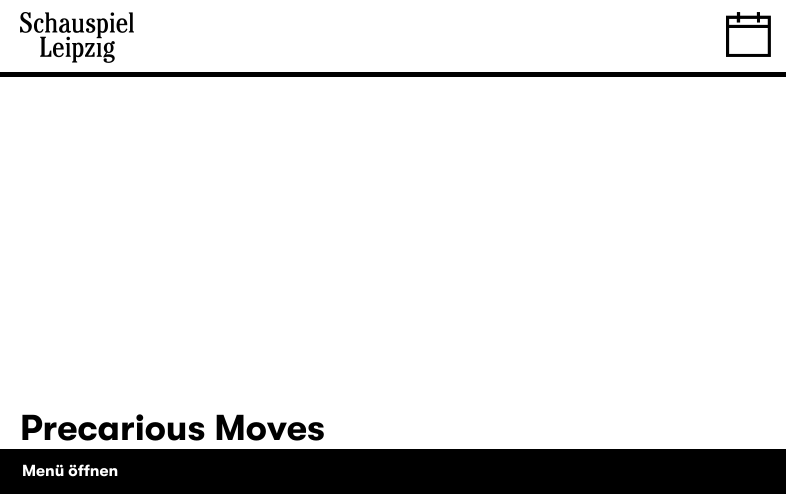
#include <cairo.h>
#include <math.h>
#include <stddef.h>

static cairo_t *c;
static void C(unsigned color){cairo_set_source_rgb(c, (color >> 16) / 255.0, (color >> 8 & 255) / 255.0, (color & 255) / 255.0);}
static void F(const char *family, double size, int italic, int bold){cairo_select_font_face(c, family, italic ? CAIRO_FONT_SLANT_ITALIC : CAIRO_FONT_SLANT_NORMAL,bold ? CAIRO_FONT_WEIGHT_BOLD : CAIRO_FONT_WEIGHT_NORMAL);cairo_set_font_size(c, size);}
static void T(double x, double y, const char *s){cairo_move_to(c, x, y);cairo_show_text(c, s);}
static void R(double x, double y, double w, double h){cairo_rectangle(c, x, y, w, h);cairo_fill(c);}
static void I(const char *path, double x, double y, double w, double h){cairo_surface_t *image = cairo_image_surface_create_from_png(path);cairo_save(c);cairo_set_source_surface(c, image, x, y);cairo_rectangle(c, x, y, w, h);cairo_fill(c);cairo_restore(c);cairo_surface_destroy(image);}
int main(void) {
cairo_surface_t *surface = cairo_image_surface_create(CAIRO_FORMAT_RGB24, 786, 494);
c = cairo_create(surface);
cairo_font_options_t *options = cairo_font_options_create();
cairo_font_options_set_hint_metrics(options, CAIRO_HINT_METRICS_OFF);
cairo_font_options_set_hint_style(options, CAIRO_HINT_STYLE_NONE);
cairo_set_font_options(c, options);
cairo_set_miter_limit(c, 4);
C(0xffffff);
cairo_paint(c);
C(0x000000);
R(0,72,786,5);
I("1.png",20,12,114,51);
I("2.png",726,12,45,45);
F("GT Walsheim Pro",36,0,1);
T(20,440,"Precarious Moves");
R(0,449,786,45);
F("GT Walsheim Pro",16,0,1);
C(0xffffff);
T(22,476,"Menü öffnen");
cairo_surface_write_to_png(surface, "o.png");
cairo_font_options_destroy(options);
cairo_destroy(c);
cairo_surface_destroy(surface);
return 0;
}
